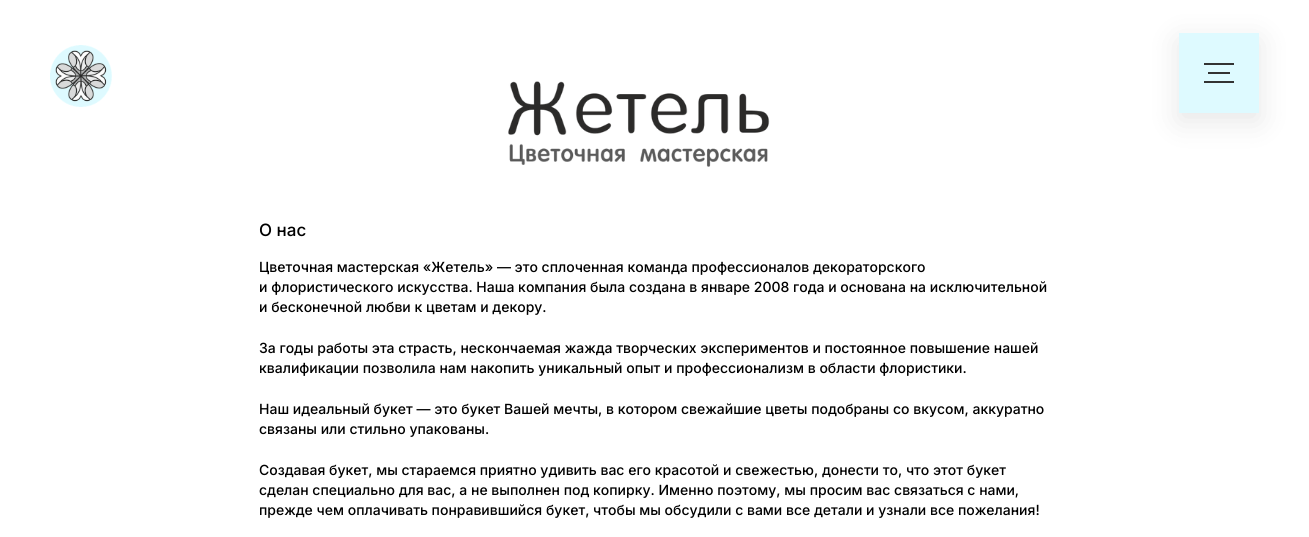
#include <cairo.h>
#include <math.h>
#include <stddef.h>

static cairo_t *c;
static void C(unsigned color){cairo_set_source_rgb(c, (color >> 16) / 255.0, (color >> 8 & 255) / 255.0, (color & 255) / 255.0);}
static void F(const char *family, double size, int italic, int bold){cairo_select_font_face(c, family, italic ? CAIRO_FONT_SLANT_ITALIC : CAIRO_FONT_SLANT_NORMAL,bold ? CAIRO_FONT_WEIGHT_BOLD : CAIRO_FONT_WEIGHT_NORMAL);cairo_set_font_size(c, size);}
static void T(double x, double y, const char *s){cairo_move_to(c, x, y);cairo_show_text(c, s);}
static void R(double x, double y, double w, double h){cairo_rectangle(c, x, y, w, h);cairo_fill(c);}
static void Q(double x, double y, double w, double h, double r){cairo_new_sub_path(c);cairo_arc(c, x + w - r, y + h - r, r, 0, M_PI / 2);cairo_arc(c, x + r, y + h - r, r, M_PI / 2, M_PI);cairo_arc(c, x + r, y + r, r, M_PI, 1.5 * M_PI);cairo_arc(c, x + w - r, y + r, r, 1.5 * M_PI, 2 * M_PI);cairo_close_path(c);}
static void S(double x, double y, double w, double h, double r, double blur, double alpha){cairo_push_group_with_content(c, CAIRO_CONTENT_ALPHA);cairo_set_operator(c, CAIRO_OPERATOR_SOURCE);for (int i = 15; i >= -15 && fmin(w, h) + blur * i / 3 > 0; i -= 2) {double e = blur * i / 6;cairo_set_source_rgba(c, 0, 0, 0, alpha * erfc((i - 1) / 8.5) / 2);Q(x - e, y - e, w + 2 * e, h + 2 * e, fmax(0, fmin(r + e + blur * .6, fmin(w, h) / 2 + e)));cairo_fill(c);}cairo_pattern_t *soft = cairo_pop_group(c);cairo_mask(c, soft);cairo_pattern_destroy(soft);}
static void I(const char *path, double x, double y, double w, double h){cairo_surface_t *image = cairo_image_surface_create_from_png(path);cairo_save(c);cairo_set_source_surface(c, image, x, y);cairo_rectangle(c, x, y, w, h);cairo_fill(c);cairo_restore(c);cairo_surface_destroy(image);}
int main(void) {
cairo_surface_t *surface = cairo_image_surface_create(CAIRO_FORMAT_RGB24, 1309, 537);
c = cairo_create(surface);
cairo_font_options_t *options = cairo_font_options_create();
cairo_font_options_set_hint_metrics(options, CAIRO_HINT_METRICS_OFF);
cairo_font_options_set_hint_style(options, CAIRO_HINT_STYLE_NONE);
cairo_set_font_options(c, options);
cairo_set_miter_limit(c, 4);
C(0xffffff);
cairo_paint(c);
I("1.png",50,45,62,62);
C(0x000000);
S(1179,41,80,80,0,15,.1);
C(0xdefaff);
R(1179,33,80,80);
C(0x333333);
R(1204,63,30,2);
R(1204,81,30,2);
R(1208,72,22,2);
I("2.png",508,81,262,86);
F("Inter Medium",17,0,0);
C(0x000000);
T(259,236,"О нас");
F("Inter Medium",14,0,0);
T(259,272,"Цветочная мастерская «Жетель» — это сплоченная команда профессионалов декораторского");
T(259,292,"и флористического искусства. Наша компания была создана в январе 2008 года и основана на исключительной");
T(259,312,"и бесконечной любви к цветам и декору.");
T(259,353,"За годы работы эта страсть, нескончаемая жажда творческих экспериментов и постоянное повышение нашей");
T(259,373,"квалификации позволила нам накопить уникальный опыт и профессионализм в области флористики.");
T(259,414,"Наш идеальный букет — это букет Вашей мечты, в котором свежайшие цветы подобраны со вкусом, аккуратно");
T(259,434,"связаны или стильно упакованы.");
T(259,475,"Создавая букет, мы стараемся приятно удивить вас его красотой и свежестью, донести то, что этот букет");
T(259,495,"сделан специально для вас, а не выполнен под копирку. Именно поэтому, мы просим вас связаться с нами,");
T(259,515,"прежде чем оплачивать понравившийся букет, чтобы мы обсудили с вами все детали и узнали все пожелания!");
cairo_surface_write_to_png(surface, "o.png");
cairo_font_options_destroy(options);
cairo_destroy(c);
cairo_surface_destroy(surface);
return 0;
}
